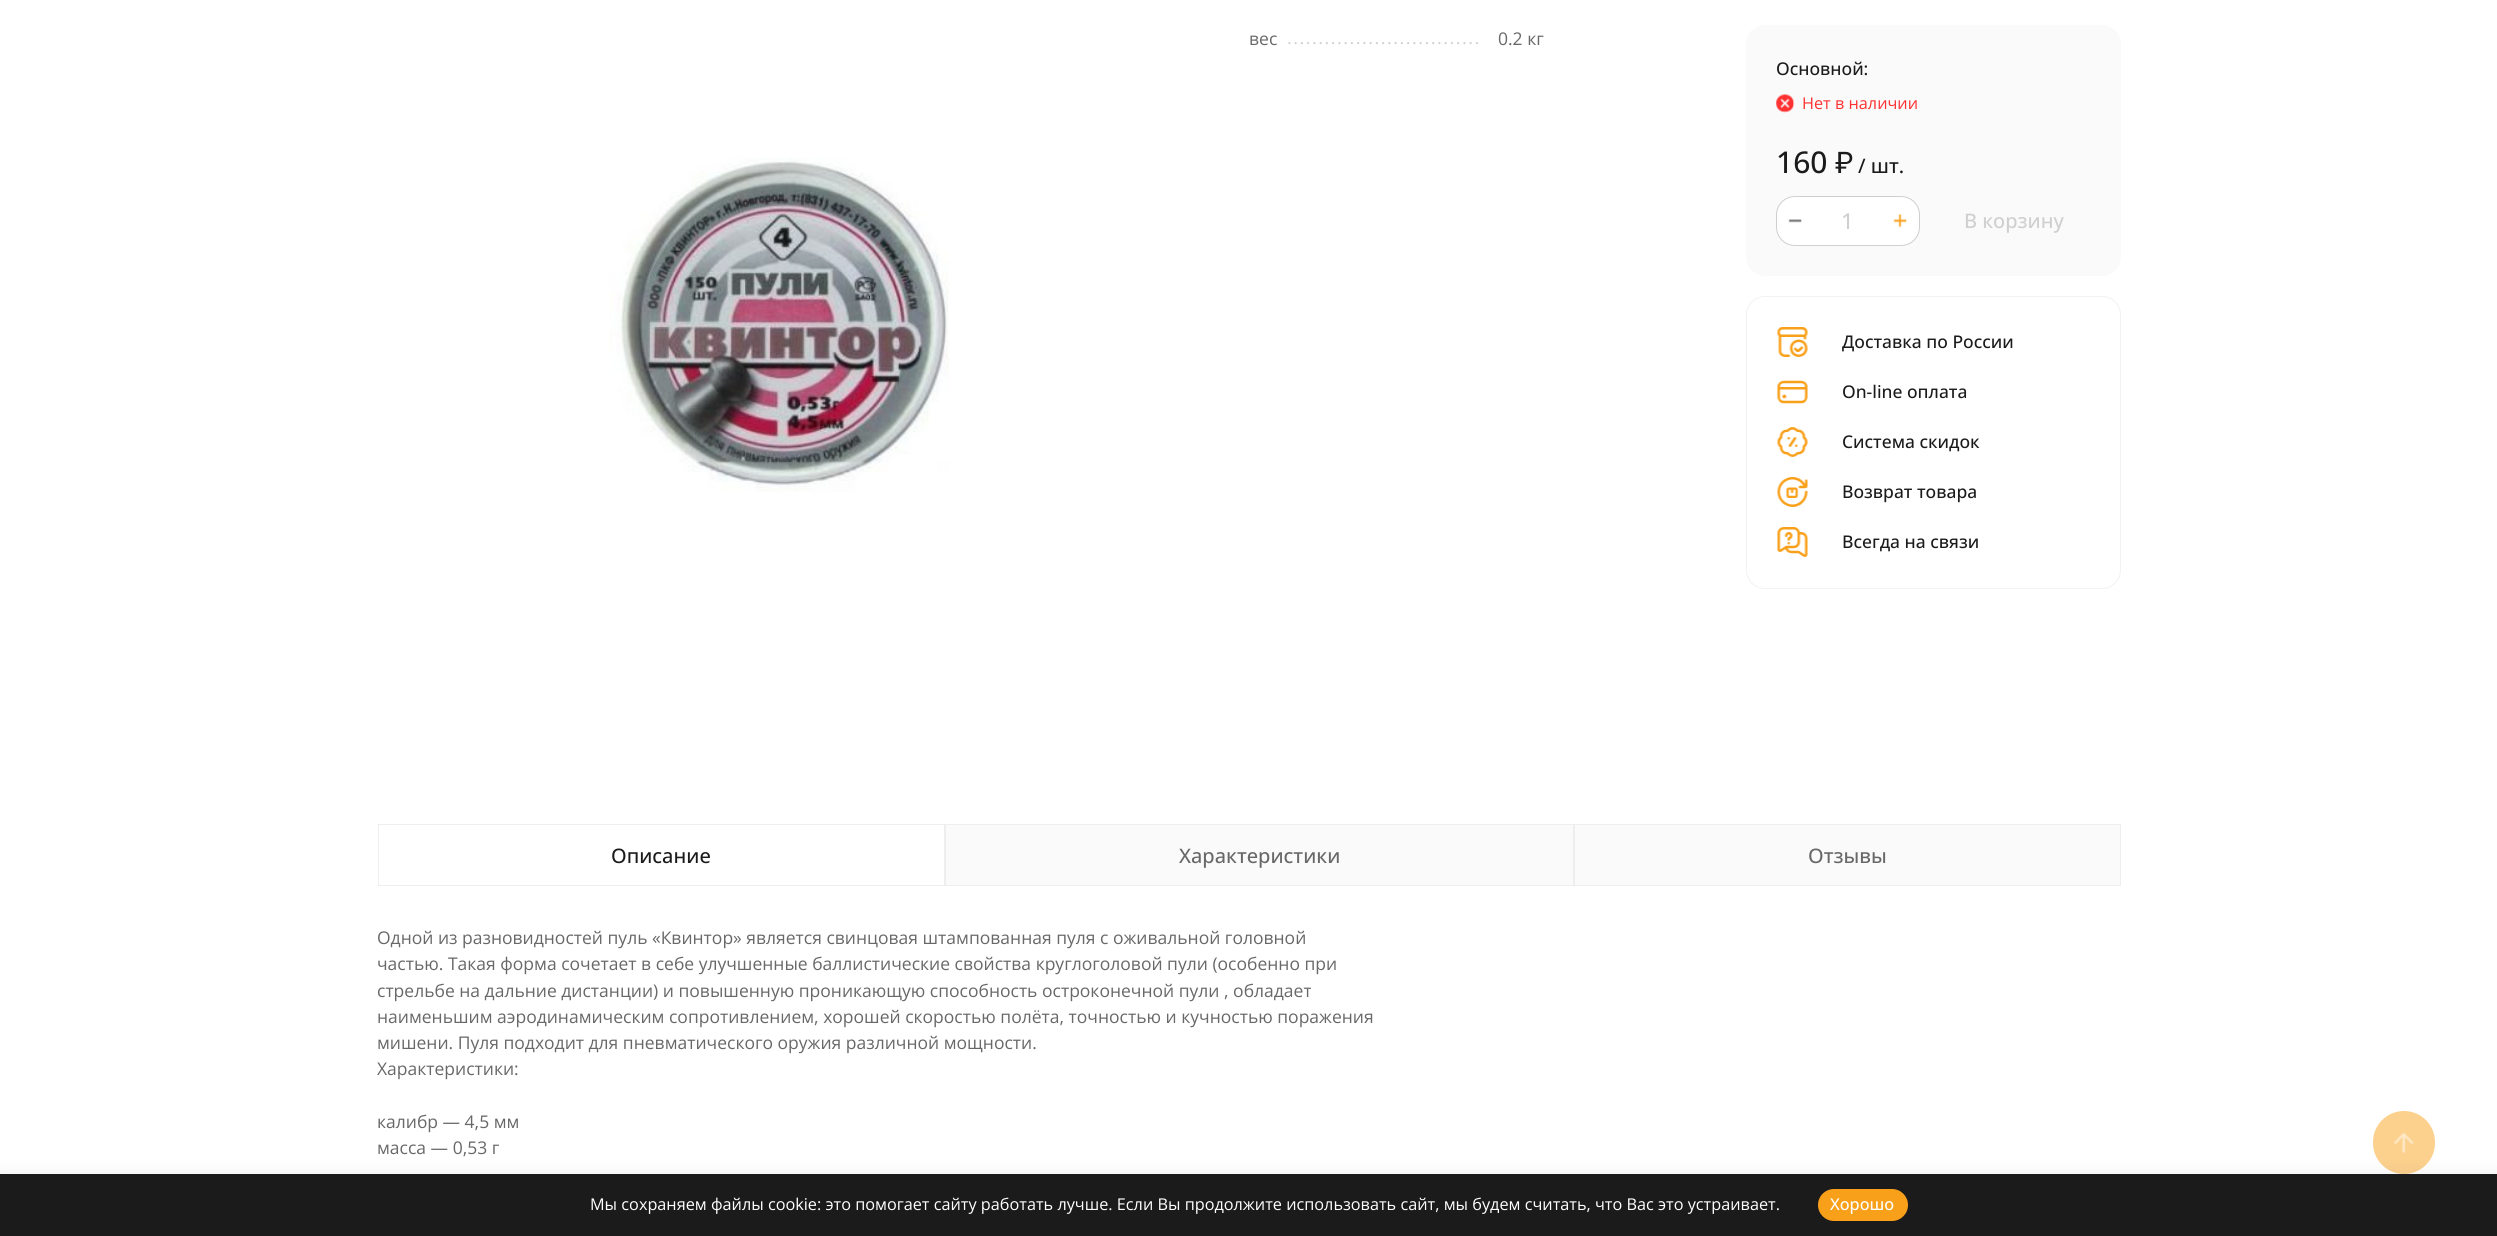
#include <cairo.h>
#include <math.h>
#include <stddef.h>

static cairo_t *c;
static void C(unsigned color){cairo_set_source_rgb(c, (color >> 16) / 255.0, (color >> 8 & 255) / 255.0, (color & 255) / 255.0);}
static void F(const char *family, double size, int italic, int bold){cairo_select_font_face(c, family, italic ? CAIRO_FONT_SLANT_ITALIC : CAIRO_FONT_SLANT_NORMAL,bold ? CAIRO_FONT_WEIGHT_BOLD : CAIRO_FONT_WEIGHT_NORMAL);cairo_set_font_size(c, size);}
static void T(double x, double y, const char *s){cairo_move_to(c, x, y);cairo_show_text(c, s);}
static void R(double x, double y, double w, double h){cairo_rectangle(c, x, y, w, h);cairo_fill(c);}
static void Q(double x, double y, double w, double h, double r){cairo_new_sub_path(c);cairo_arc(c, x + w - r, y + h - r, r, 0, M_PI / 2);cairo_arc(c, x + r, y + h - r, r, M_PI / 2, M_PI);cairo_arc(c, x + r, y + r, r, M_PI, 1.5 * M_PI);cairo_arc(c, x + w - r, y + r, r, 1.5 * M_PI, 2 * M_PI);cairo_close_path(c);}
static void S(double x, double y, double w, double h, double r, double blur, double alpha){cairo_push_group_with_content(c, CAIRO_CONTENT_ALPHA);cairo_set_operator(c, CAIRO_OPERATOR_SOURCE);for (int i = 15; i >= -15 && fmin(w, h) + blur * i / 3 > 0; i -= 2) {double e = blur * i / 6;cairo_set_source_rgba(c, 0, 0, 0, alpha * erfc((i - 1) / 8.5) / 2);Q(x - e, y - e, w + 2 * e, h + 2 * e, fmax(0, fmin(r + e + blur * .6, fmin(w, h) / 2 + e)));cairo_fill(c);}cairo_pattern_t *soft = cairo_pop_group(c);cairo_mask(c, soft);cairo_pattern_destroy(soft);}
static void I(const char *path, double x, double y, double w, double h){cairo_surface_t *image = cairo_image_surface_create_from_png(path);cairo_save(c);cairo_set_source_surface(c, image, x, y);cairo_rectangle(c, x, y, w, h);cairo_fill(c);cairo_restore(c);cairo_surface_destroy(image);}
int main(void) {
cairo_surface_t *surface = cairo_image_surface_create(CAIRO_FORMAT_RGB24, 2497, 1236);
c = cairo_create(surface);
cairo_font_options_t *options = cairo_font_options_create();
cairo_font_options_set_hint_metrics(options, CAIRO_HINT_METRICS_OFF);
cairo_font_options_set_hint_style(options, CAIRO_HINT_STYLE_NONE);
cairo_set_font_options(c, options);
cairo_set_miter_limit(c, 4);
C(0xffffff);
cairo_paint(c);
I("1.png",609,157,340,335);
cairo_new_path(c);
cairo_move_to(c,1251.9,43.1);
cairo_line_to(c,1477.1,43.1);
C(0xcfcfcf);
cairo_set_line_width(c,2.2);
cairo_set_line_cap(c,CAIRO_LINE_CAP_ROUND);
cairo_set_dash(c,(double[]){0,6.25},2,0);
cairo_stroke(c);
C(0xffffff);
R(1250,42,35,3);
F("Open Sans",17.5,0,0);
C(0x686868);
T(1249,45,"вес");
T(1498,45,"0.2 кг");
C(0xfafafa);
Q(1746,25,375,251,19);
cairo_fill(c);
F("Open Sans Medium",17.5,0,0);
C(0x1b1b1b);
T(1776,75,"Основной:");
I("2.png",1776,94,19,19);
F("Open Sans",16.25,0,0);
C(0xff3131);
T(1802,109,"Нет в наличии");
F("Open Sans Medium",30,0,0);
C(0x1b1b1b);
T(1776,173,"160");
F("Nunito Sans Medium",30,0,0);
T(1835,173,"₽");
F("Open Sans Medium",20,0,0);
T(1858,173,"/ шт.");
C(0xffffff);
Q(1776.5,196.5,143,49,18.5);
cairo_fill_preserve(c);
C(0xcfcfcf);
cairo_set_line_width(c,1);
cairo_set_line_cap(c,CAIRO_LINE_CAP_BUTT);
cairo_set_dash(c,NULL,0,0);
cairo_stroke(c);
I("3.png",1788,219,14,4);
F("Open Sans Medium",22,0,0);
T(1841,229,"1");
I("4.png",1893,214,14,14);
F("Open Sans Medium",20,0,0);
T(1964,228,"В корзину");
Q(1746.5,296.5,374,292,18.5);
C(0xf2f2f2);
cairo_stroke(c);
I("5.png",1777,327,31,30);
F("Open Sans Medium",17.5,0,0);
C(0x1b1b1b);
T(1842,348,"Доставка по России");
I("6.png",1777,380,31,24);
T(1842,398,"On-line оплата");
I("7.png",1777,427,31,30);
T(1842,448,"Система скидок");
I("8.png",1777,477,31,30);
T(1842,498,"Возврат товара");
I("9.png",1777,527,31,30);
T(1842,548,"Всегда на связи");
cairo_rectangle(c,378.5,824.5,566,61);
C(0xeeeeee);
cairo_stroke(c);
F("Open Sans Medium",20,0,0);
C(0x1b1b1b);
T(611,863,"Описание");
C(0xfafafa);
cairo_rectangle(c,945.5,824.5,628,61);
cairo_fill_preserve(c);
C(0xeeeeee);
cairo_stroke(c);
C(0x686868);
T(1179,863,"Характеристики");
C(0xfafafa);
cairo_rectangle(c,1574.5,824.5,546,61);
cairo_fill_preserve(c);
C(0xeeeeee);
cairo_stroke(c);
C(0x686868);
T(1808,863,"Отзывы");
F("Open Sans",17.5,0,0);
T(377,944,"Одной из разновидностей пуль «Квинтор» является свинцовая штампованная пуля с оживальной головной");
T(377,970,"частью. Такая форма сочетает в себе улучшенные баллистические свойства круглоголовой пули (особенно при");
T(377,997,"стрельбе на дальние дистанции) и повышенную проникающую способность остроконечной пули , обладает");
T(377,1023,"наименьшим аэродинамическим сопротивлением, хорошей скоростью полёта, точностью и кучностью поражения");
T(377,1049,"мишени. Пуля подходит для пневматического оружия различной мощности.");
T(377,1075,"Характеристики:");
T(377,1128,"калибр — 4,5 мм");
T(377,1154,"масса — 0,53 г");
C(0xfcd08d);
Q(2373,1111,62,63,31);
cairo_fill(c);
I("10.png",2393,1132,21,21);
C(0x000000);
S(0,1174,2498,62,0,9.5,.07);
C(0x1b1b1b);
R(0,1174,2497,62);
F("Open Sans",16.25,0,0);
C(0xffffff);
T(590,1210,"Мы сохраняем файлы cookie: это помогает сайту работать лучше. Если Вы продолжите использовать сайт, мы будем считать, что Вас это устраивает.");
C(0xf9a01b);
Q(1818,1189,90,32,16);
cairo_fill(c);
F("Open Sans Medium",16.25,0,0);
C(0xffffff);
T(1830,1210,"Хорошо");
cairo_surface_write_to_png(surface, "o.png");
cairo_font_options_destroy(options);
cairo_destroy(c);
cairo_surface_destroy(surface);
return 0;
}
